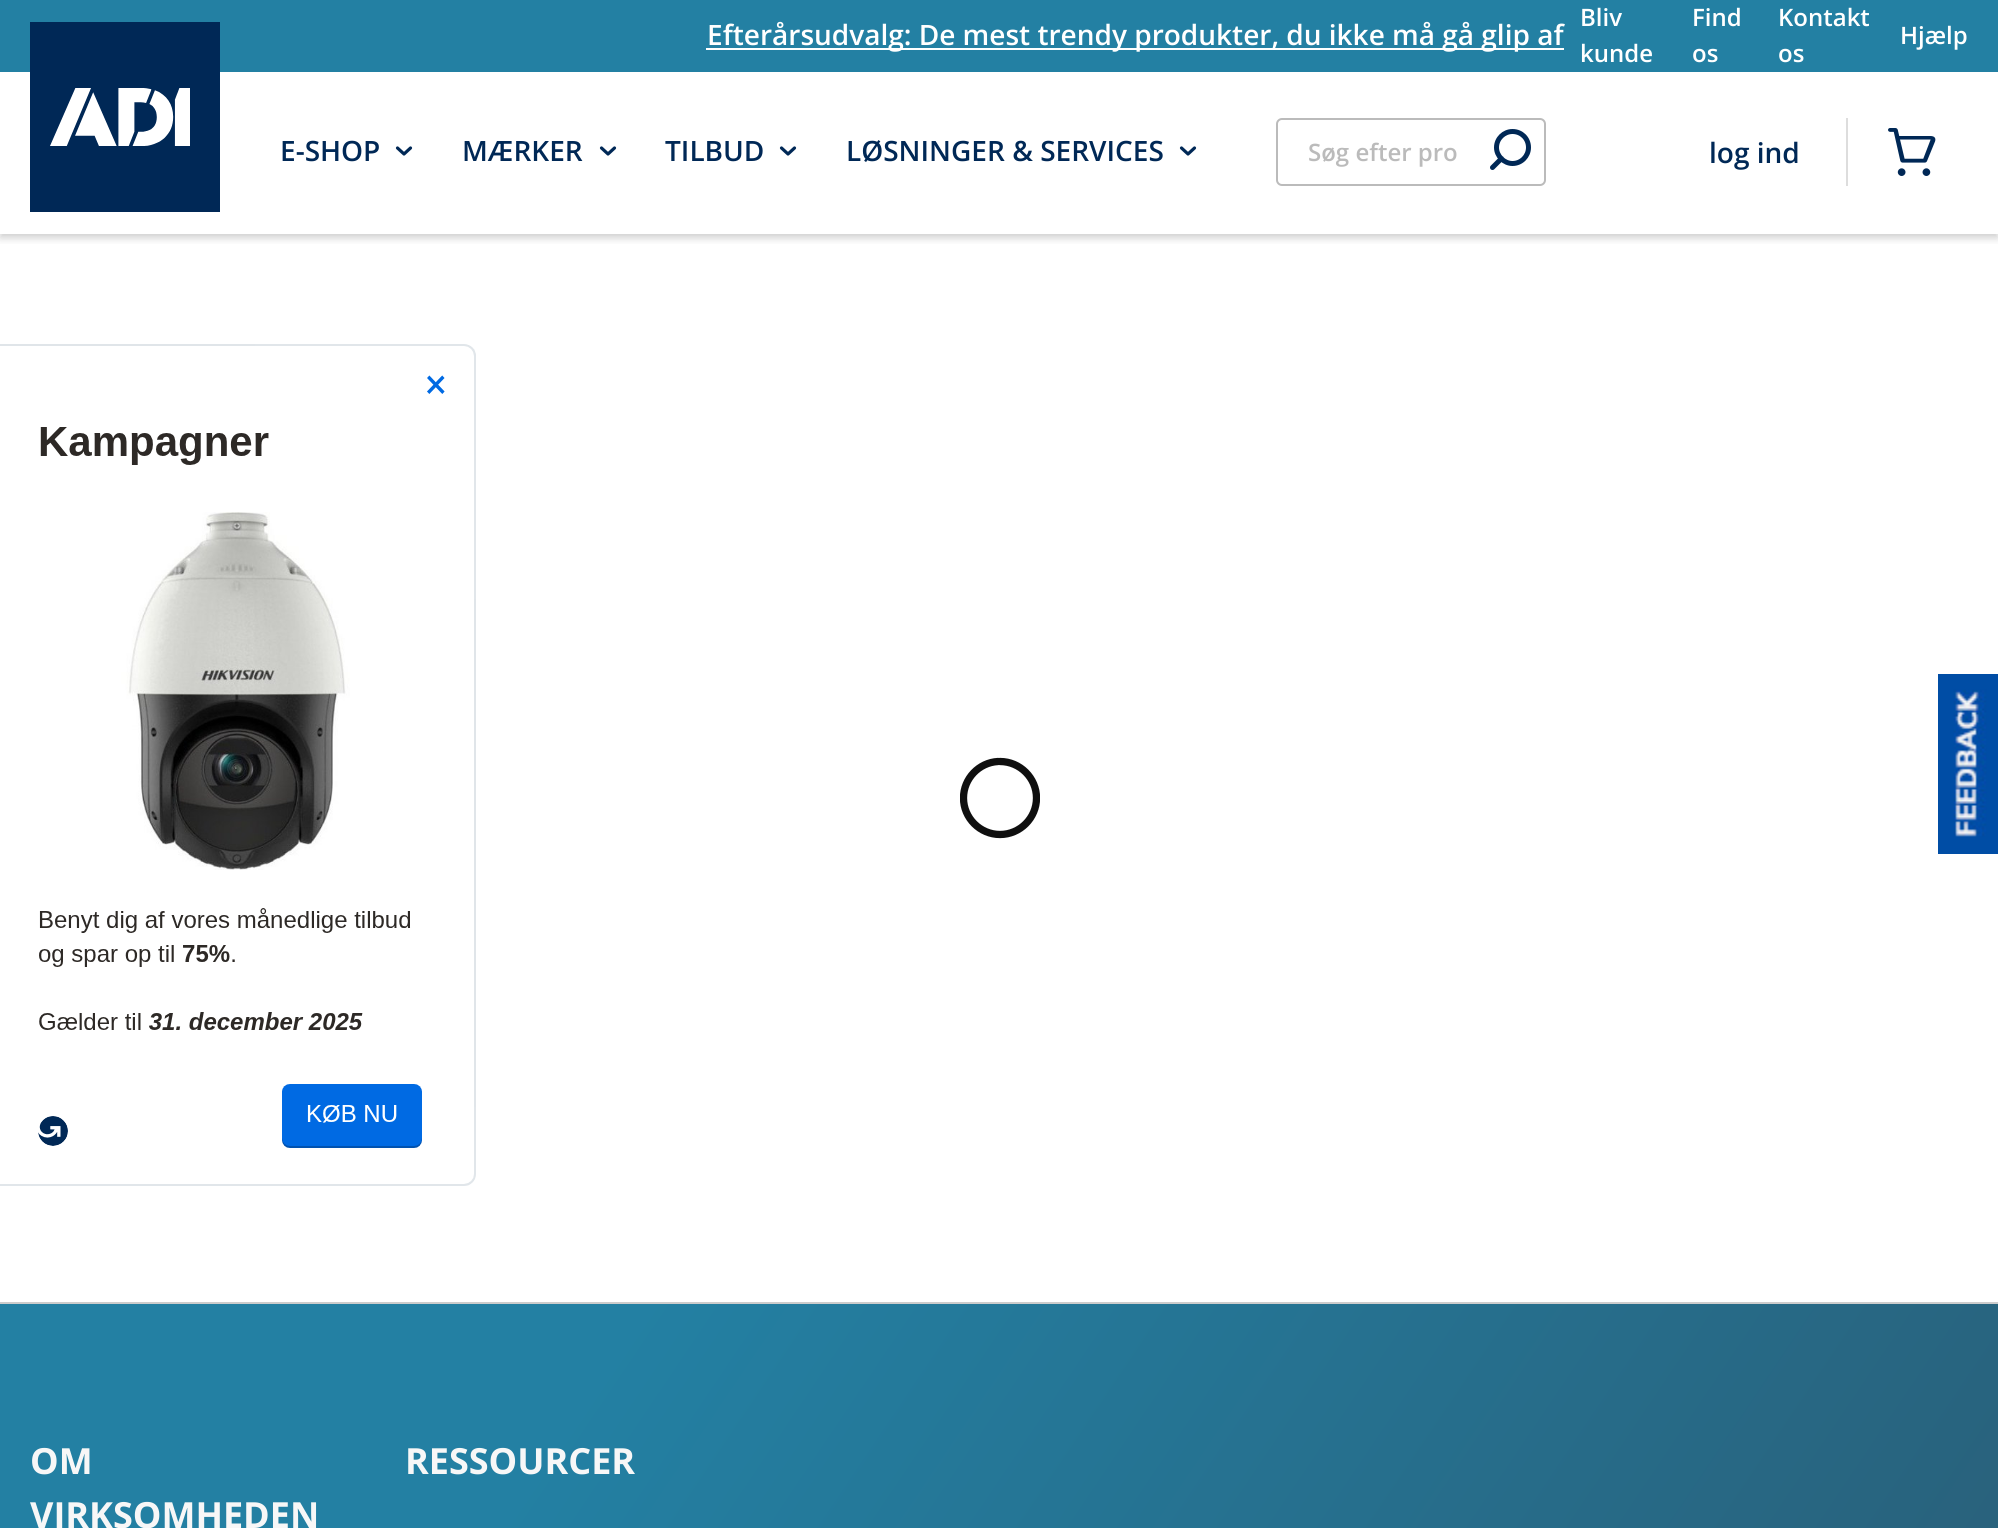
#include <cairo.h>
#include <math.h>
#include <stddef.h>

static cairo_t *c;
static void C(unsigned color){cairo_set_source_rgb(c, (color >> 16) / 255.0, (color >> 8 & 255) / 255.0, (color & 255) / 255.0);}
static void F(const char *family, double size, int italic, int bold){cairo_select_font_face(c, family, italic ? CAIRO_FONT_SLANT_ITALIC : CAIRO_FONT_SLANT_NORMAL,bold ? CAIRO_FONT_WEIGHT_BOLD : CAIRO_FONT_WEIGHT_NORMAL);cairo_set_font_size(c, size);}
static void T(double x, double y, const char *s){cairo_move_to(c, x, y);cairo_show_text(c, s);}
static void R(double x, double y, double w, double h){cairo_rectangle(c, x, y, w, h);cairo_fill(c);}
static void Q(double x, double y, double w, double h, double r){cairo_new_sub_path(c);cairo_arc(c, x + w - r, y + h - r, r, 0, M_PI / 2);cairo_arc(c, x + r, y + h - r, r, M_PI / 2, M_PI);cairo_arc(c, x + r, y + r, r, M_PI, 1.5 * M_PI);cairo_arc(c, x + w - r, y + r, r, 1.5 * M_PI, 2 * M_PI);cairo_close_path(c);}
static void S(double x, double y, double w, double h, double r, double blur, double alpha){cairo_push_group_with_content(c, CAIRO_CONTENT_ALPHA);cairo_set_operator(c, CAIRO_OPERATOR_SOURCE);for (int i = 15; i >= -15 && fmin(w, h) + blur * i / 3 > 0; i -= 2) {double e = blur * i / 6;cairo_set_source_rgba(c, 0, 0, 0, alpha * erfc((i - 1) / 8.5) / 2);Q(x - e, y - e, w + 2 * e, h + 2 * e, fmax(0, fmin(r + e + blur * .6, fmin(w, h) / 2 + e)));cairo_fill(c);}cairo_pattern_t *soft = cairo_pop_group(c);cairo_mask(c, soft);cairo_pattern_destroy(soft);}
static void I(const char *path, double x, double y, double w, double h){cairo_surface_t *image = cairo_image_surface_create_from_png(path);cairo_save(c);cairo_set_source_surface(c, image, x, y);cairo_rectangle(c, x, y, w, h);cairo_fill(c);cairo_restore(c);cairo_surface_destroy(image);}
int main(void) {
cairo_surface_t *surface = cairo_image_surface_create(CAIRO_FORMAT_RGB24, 1998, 1528);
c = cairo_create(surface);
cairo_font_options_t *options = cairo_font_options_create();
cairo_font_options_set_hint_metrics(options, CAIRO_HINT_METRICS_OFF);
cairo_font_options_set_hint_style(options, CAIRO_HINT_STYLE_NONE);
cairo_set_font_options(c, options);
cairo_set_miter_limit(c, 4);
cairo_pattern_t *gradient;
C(0xffffff);
cairo_paint(c);
cairo_save(c);
cairo_rectangle(c,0,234,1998,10);
cairo_clip(c);
C(0x696969);
S(0,4,1998,234,0,4,.32);
cairo_restore(c);
C(0x2380a3);
R(0,0,1998,72);
C(0xffffff);
R(706,48,858,2);
F("Open Sans SemiBold",28,0,0);
T(707,45,"Efterårsudvalg: De mest trendy produkter, du ikke må gå glip af");
F("Open Sans SemiBold",24,0,0);
T(1580,26,"Bliv");
T(1580,62,"kunde");
T(1692,26,"Find");
T(1692,62,"os");
T(1778,26,"Kontakt");
T(1778,62,"os");
T(1900,44,"Hjælp");
I("1.png",30,22,190,190);
F("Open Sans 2 SemiBold",28,0,0);
C(0x002856);
T(280,161,"E-SHOP");
cairo_new_path(c);
cairo_move_to(c,397.5,148);
cairo_line_to(c,404,154);
cairo_line_to(c,410.5,148);
cairo_set_line_width(c,3.2);
cairo_set_line_cap(c,CAIRO_LINE_CAP_ROUND);
cairo_set_line_join(c,CAIRO_LINE_JOIN_ROUND);
cairo_stroke(c);
T(462,161,"MÆRKER");
cairo_new_path(c);
cairo_move_to(c,601.5,148);
cairo_line_to(c,608,154);
cairo_line_to(c,614.5,148);
cairo_stroke(c);
T(665,161,"TILBUD");
cairo_new_path(c);
cairo_move_to(c,781.5,148);
cairo_line_to(c,788,154);
cairo_line_to(c,794.5,148);
cairo_stroke(c);
T(846,161,"LØSNINGER & SERVICES");
cairo_new_path(c);
cairo_move_to(c,1181.5,148);
cairo_line_to(c,1188,154);
cairo_line_to(c,1194.5,148);
cairo_stroke(c);
Q(1277,119,268,66,5);
C(0xbbbbbb);
cairo_set_line_width(c,2);
cairo_set_line_cap(c,CAIRO_LINE_CAP_BUTT);
cairo_set_line_join(c,CAIRO_LINE_JOIN_MITER);
cairo_stroke(c);
F("Open Sans SemiBold",24,0,0);
T(1308,161,"Søg efter pro");
cairo_new_path(c);
cairo_move_to(c,1528.5,147.5);
cairo_curve_to(c,1528.5,156,1521.5,163.5,1512.5,163.5);
cairo_curve_to(c,1504,163.5,1496.5,156,1496.5,147.5);
cairo_curve_to(c,1496.5,138.5,1504,131.5,1512.5,131.5);
cairo_curve_to(c,1521.5,131.5,1528.5,138.5,1528.5,147.5);
cairo_close_path(c);
cairo_move_to(c,1492.5,167.5);
cairo_line_to(c,1501.5,158.5);
C(0x002856);
cairo_set_line_width(c,5);
cairo_set_line_cap(c,CAIRO_LINE_CAP_ROUND);
cairo_set_line_join(c,CAIRO_LINE_JOIN_ROUND);
cairo_stroke(c);
C(0xdddddd);
R(1846,118,2,68);
F("Open Sans SemiBold",28,0,0);
C(0x002856);
T(1709,163,"log ind");
I("2.png",1888,128,48,48);
cairo_save(c);
cairo_rectangle(c,960,334,80,928);
cairo_clip(c);
cairo_new_path(c);
cairo_move_to(c,1000,761.5);
cairo_curve_to(c,1020,761.5,1036.5,778,1036.5,798);
cairo_curve_to(c,1036.5,818,1020,834.5,1000,834.5);
cairo_curve_to(c,980,834.5,963.5,818,963.5,798);
cairo_curve_to(c,963.5,778.5,979,762.5,998,761.5);
C(0x0f0f0f);
cairo_set_line_width(c,7.3);
cairo_set_line_join(c,CAIRO_LINE_JOIN_MITER);
cairo_stroke(c);
cairo_restore(c);
gradient = cairo_pattern_create_linear(-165,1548,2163,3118);
cairo_pattern_add_color_stop_rgba(gradient,.19,0.137,0.502,0.639,1);
cairo_pattern_add_color_stop_rgba(gradient,.81,0.169,0.337,0.427,1);
cairo_set_source(c,gradient);
cairo_pattern_destroy(gradient);
R(0,1304,1998,224);
C(0xcccccc);
R(0,1302,1998,2);
F("Open Sans",36,0,1);
C(0xf7f7f7);
T(30,1474,"OM");
T(30,1528,"VIRKSOMHEDEN");
T(405,1474,"RESSOURCER");
I("3.png",0,344,476,842);
I("4.png",1938,674,60,180);
cairo_surface_write_to_png(surface, "o.png");
cairo_font_options_destroy(options);
cairo_destroy(c);
cairo_surface_destroy(surface);
return 0;
}
